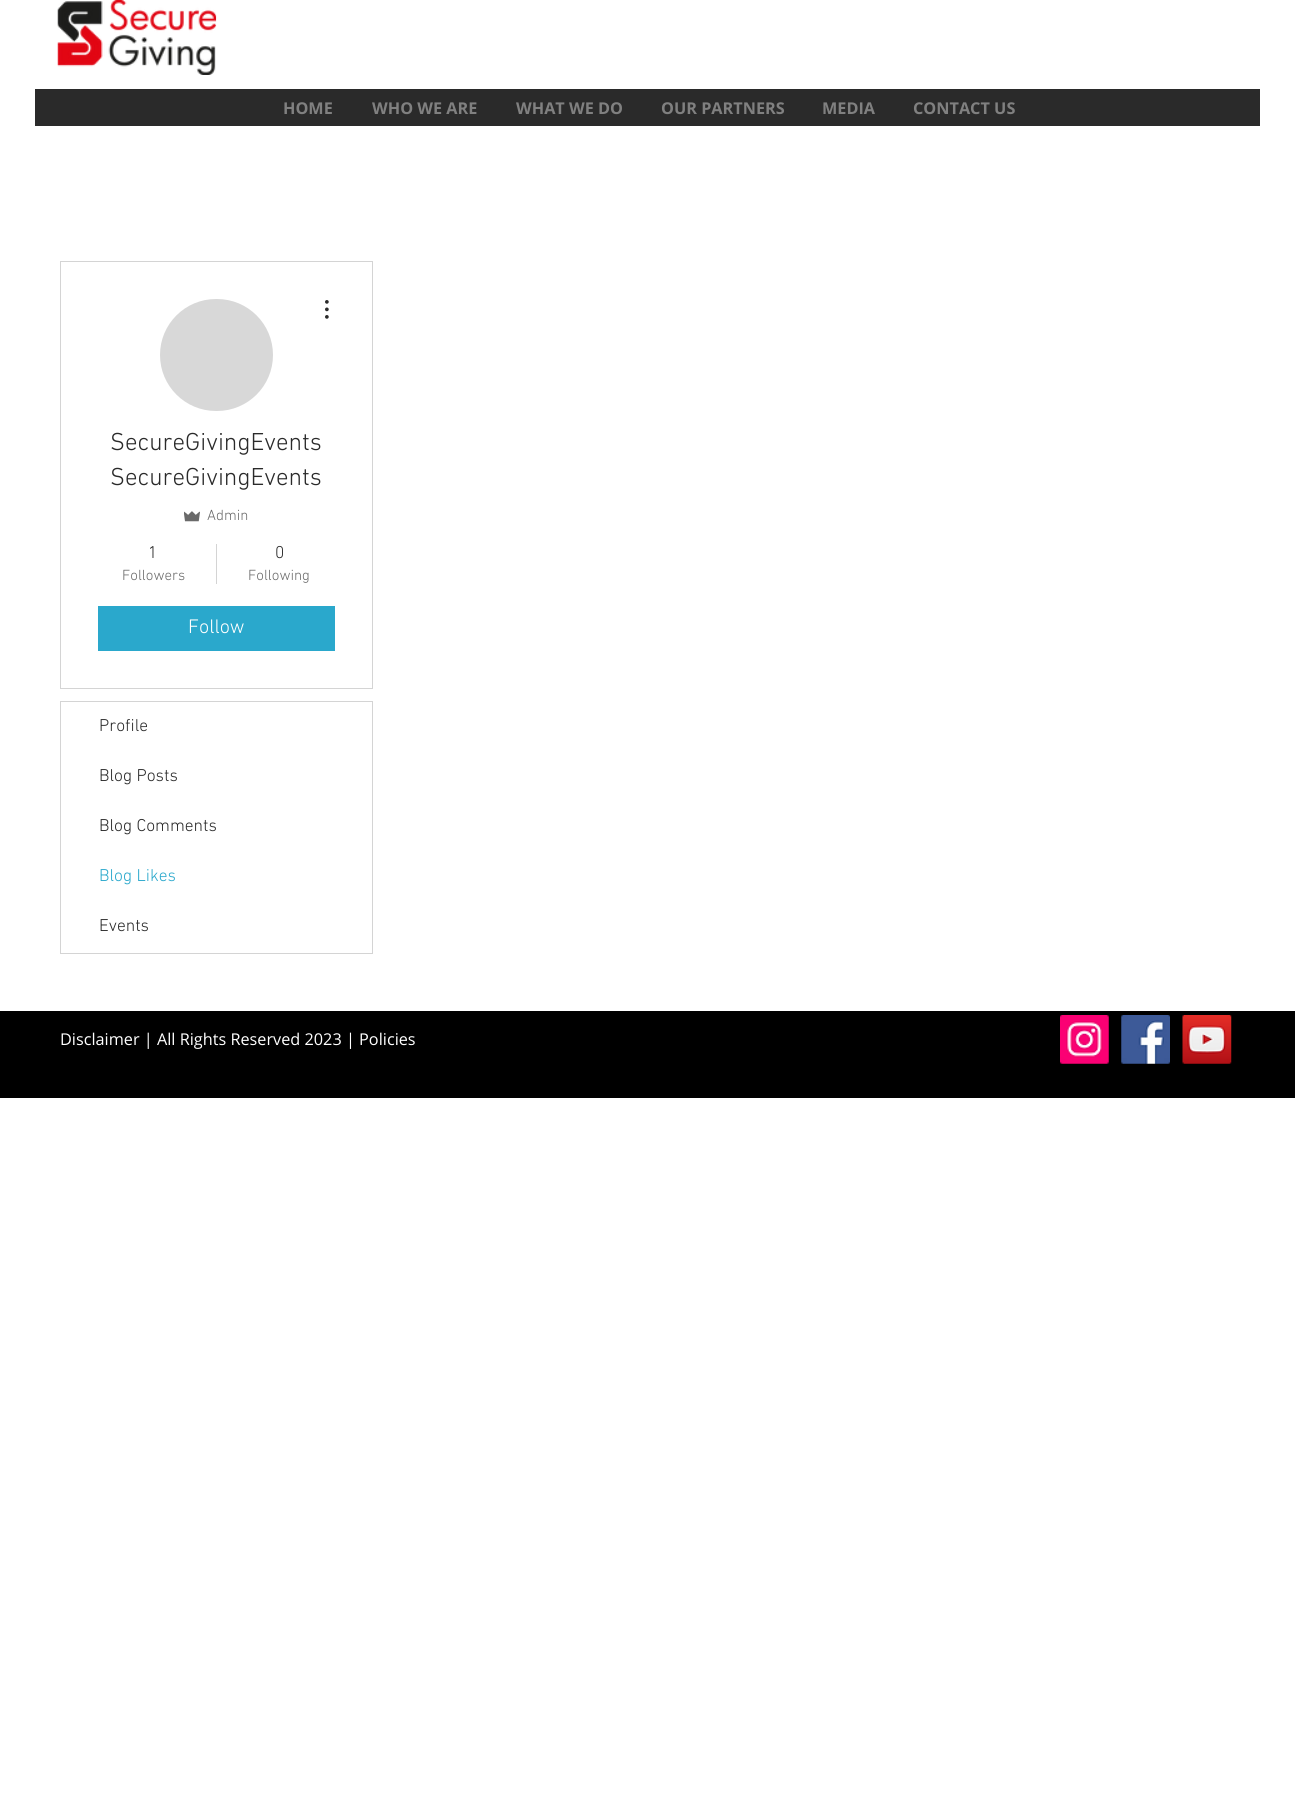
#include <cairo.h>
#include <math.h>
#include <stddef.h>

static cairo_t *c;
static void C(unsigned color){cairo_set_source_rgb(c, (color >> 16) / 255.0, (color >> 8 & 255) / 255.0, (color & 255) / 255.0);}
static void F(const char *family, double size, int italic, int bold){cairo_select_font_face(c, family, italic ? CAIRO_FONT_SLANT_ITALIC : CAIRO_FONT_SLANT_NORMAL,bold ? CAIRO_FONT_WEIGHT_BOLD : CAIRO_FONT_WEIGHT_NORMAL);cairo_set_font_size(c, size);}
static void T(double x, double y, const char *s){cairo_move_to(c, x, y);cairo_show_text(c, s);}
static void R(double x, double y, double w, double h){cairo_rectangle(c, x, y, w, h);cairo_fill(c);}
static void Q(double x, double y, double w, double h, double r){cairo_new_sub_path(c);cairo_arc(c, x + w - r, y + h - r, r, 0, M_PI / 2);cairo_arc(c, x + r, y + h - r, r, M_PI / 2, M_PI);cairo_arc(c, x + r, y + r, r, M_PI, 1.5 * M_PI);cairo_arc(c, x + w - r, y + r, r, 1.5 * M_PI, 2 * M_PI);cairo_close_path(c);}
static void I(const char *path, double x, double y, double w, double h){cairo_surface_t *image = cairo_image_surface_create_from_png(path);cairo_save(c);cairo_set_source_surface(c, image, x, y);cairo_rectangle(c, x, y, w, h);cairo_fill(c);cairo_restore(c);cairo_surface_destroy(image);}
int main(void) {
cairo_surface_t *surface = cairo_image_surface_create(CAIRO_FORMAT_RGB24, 1295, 1797);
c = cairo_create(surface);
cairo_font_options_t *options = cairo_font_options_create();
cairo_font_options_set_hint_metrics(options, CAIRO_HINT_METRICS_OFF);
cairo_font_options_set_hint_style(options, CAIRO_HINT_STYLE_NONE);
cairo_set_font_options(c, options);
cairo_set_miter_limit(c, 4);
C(0xffffff);
cairo_paint(c);
I("1.png",57,0,160,75);
C(0x2a2a2a);
R(35,89,1225,37);
F("Open Sans",16.25,0,1);
C(0x808080);
T(283,114,"HOME");
T(372,114,"WHO WE ARE");
T(516,114,"WHAT WE DO");
T(661,114,"OUR PARTNERS");
T(822,114,"MEDIA");
T(913,114,"CONTACT US");
cairo_rectangle(c,60.5,261.5,312,427);
C(0xd4d4d4);
cairo_set_line_width(c,1);
cairo_stroke(c);
C(0xd8d8d8);
Q(160,299,113,112,56);
cairo_fill(c);
I("2.png",325,300,4,19);
F("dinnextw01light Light",25,0,0);
C(0x2a2a2a);
T(110,450,"SecureGivingEvents");
T(110,485,"SecureGivingEvents");
I("3.png",184,511,16,11);
F("dinnextw01light Light",15,0,0);
C(0x6a6a6a);
T(207,520,"Admin");
F("dinnextw01light Light",17.5,0,0);
C(0x2a2a2a);
T(148,558,"1");
F("dinnextw01light Light",15,0,0);
C(0x6a6a6a);
T(122,580,"Followers");
C(0xd4d4d4);
R(216,544,1,40);
F("dinnextw01light Light",17.5,0,0);
C(0x2a2a2a);
T(275,558,"0");
F("dinnextw01light Light",15,0,0);
C(0x6a6a6a);
T(248,580,"Following");
C(0x2aa8cc);
R(98,606,237,45);
F("dinnextw01light Light",20,0,0);
C(0xffffff);
T(188,633,"Follow");
cairo_rectangle(c,60.5,701.5,312,252);
C(0xd4d4d4);
cairo_stroke(c);
F("dinnextw01light Light",17.5,0,0);
C(0x2a2a2a);
T(99,731,"Profile");
T(99,781,"Blog Posts");
T(99,831,"Blog Comments");
C(0x2aa8cc);
T(99,881,"Blog Likes");
C(0x2a2a2a);
T(99,931,"Events");
C(0x000000);
R(0,1011,1295,87);
F("Open Sans",16.25,0,0);
C(0xffffff);
T(60,1045,"Disclaimer | All Rights Reserved 2023 | Policies");
I("4.png",1060,1015,49,49);
I("5.png",1121,1015,49,49);
I("6.png",1182,1015,50,49);
cairo_surface_write_to_png(surface, "o.png");
cairo_font_options_destroy(options);
cairo_destroy(c);
cairo_surface_destroy(surface);
return 0;
}
